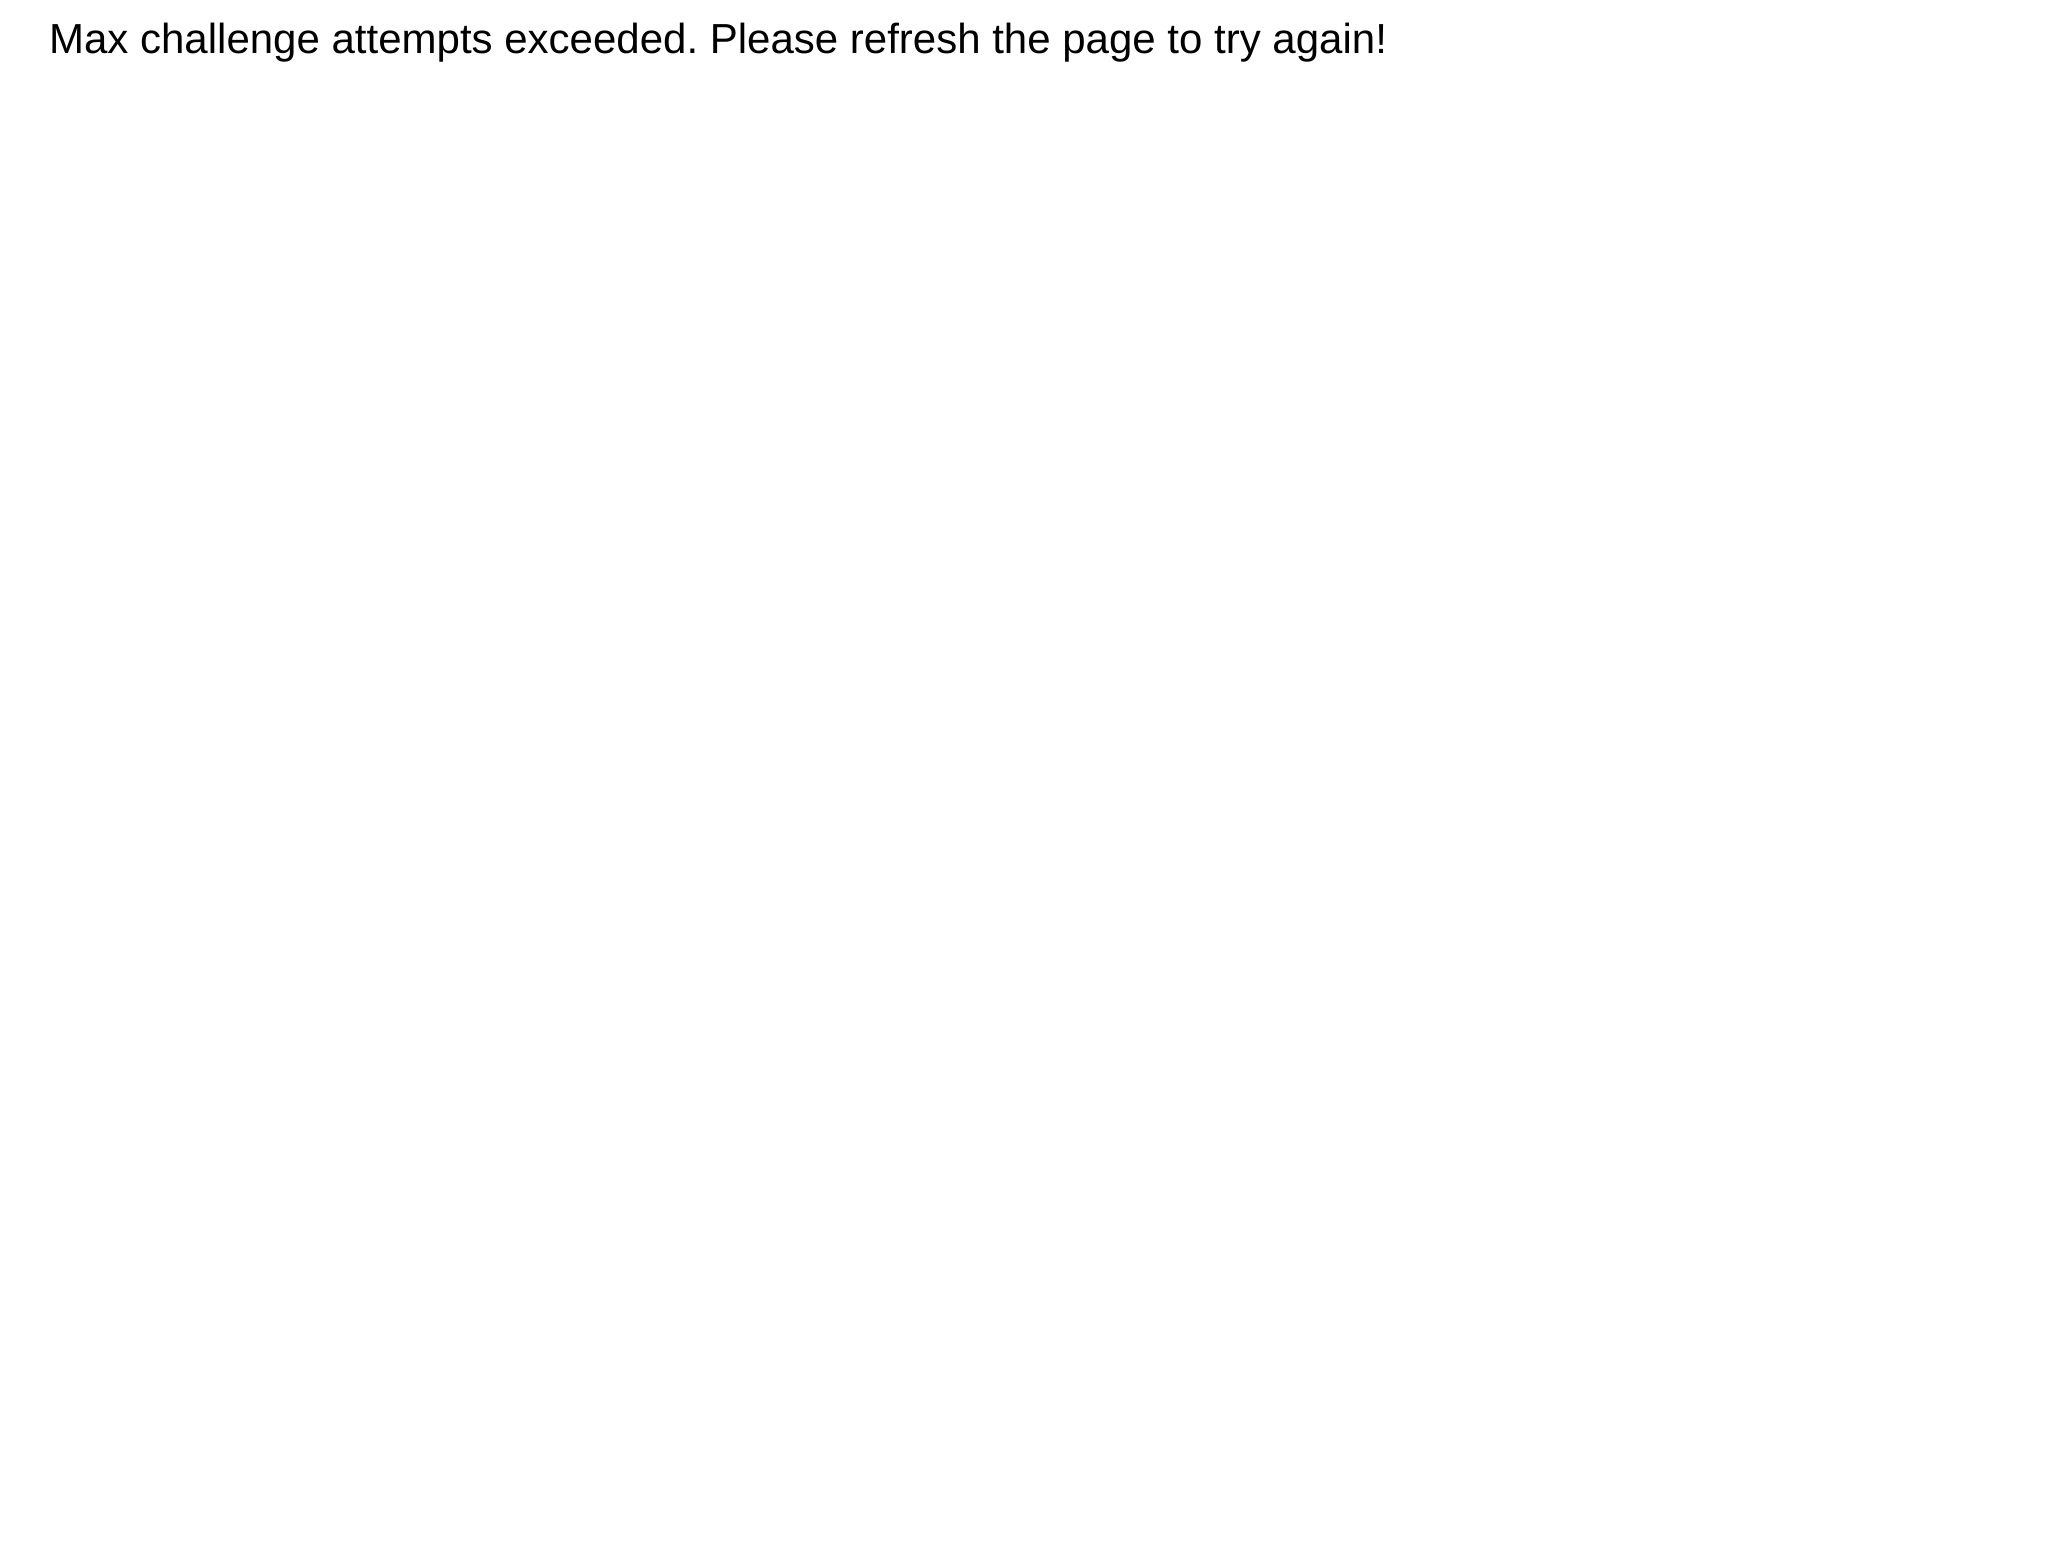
#include <cairo.h>
#include <math.h>
#include <stddef.h>

static cairo_t *c;
static void C(unsigned color){cairo_set_source_rgb(c, (color >> 16) / 255.0, (color >> 8 & 255) / 255.0, (color & 255) / 255.0);}
static void F(const char *family, double size, int italic, int bold){cairo_select_font_face(c, family, italic ? CAIRO_FONT_SLANT_ITALIC : CAIRO_FONT_SLANT_NORMAL,bold ? CAIRO_FONT_WEIGHT_BOLD : CAIRO_FONT_WEIGHT_NORMAL);cairo_set_font_size(c, size);}
static void T(double x, double y, const char *s){cairo_move_to(c, x, y);cairo_show_text(c, s);}
int main(void) {
cairo_surface_t *surface = cairo_image_surface_create(CAIRO_FORMAT_RGB24, 2050, 1555);
c = cairo_create(surface);
cairo_font_options_t *options = cairo_font_options_create();
cairo_font_options_set_hint_metrics(options, CAIRO_HINT_METRICS_OFF);
cairo_font_options_set_hint_style(options, CAIRO_HINT_STYLE_NONE);
cairo_set_font_options(c, options);
cairo_set_miter_limit(c, 4);
C(0xffffff);
cairo_paint(c);
F("Liberation Sans",42,0,0);
C(0x000000);
T(49,53,"Max challenge attempts exceeded. Please refresh the page to try again!");
cairo_surface_write_to_png(surface, "o.png");
cairo_font_options_destroy(options);
cairo_destroy(c);
cairo_surface_destroy(surface);
return 0;
}
